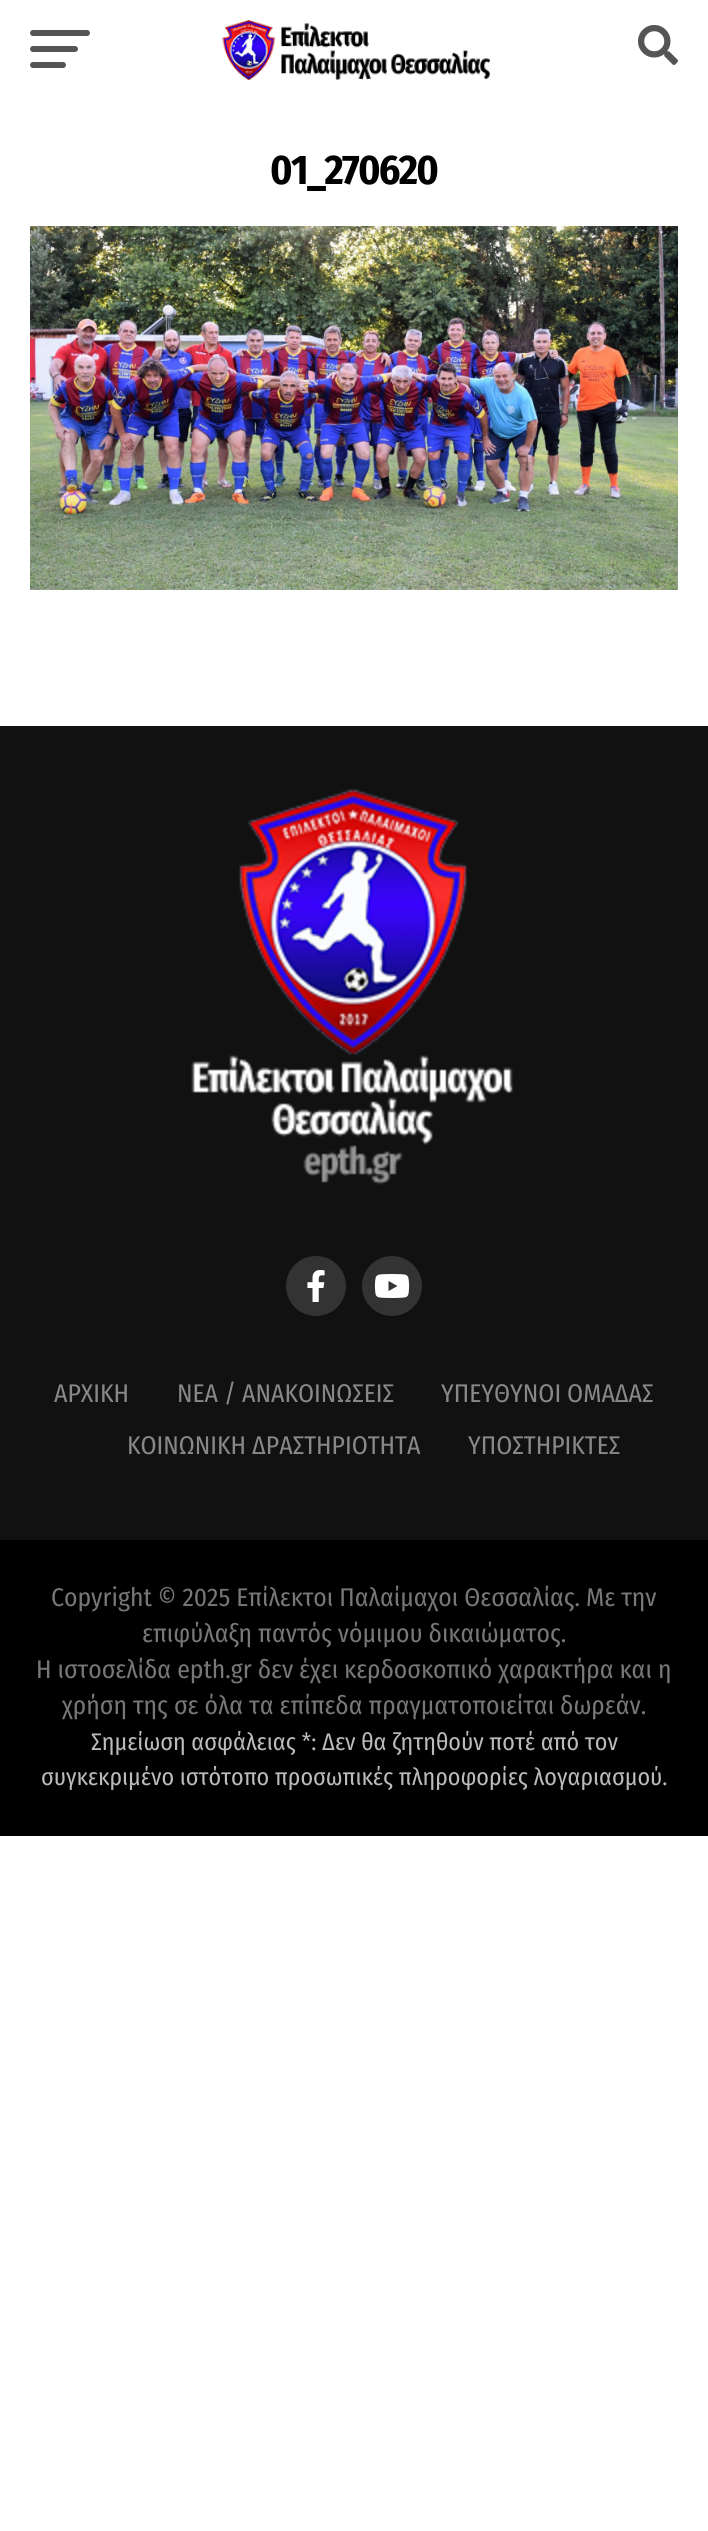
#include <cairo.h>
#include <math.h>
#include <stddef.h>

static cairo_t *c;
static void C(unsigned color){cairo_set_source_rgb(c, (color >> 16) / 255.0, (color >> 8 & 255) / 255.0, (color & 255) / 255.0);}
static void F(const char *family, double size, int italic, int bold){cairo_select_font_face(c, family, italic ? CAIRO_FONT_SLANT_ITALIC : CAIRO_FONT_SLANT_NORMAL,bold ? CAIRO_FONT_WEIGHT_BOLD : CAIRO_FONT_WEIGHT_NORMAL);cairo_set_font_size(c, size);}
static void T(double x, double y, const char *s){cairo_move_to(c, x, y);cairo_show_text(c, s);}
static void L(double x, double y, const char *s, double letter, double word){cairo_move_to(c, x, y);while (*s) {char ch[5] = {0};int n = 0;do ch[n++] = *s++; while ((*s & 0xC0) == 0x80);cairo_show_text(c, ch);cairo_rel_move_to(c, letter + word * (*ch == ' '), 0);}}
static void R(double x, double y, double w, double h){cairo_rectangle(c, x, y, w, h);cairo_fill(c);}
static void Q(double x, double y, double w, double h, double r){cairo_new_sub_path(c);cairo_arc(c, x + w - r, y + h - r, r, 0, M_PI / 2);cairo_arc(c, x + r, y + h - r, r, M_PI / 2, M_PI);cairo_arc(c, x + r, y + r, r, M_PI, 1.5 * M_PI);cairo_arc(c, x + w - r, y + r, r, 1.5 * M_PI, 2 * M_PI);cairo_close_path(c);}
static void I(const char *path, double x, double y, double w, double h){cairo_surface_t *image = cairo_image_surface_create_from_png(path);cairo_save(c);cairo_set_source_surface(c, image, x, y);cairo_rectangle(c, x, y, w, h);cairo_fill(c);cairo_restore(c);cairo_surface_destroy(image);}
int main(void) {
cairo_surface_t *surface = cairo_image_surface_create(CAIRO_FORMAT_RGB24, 708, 2531);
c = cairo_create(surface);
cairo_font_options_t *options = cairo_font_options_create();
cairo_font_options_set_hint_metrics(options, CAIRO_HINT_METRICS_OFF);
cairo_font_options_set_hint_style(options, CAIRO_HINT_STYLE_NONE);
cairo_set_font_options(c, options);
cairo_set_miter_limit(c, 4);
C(0xffffff);
cairo_paint(c);
C(0x555555);
Q(30,30,60,6,3);
cairo_fill(c);
Q(30,46,48,6,3);
cairo_fill(c);
Q(30,62,36,6,3);
cairo_fill(c);
I("1.png",222,20,268,60);
I("2.png",638,25,40,40);
F("Fira Sans Condensed",41.5,0,1);
C(0x000000);
L(270,184,"01_270620",-1.75,0);
I("3.png",30,226,648,364);
C(0x111111);
R(0,726,708,814);
I("4.png",191,789,322,396);
C(0x333333);
cairo_arc(c,316,1286,30,0,2 * M_PI);
cairo_fill(c);
I("5.png",307,1270,18,32);
cairo_arc(c,392,1286,30,0,2 * M_PI);
cairo_fill(c);
I("6.png",374,1274,36,24);
F("Fira Sans Condensed",25.6,0,0);
C(0x888888);
T(54,1402,"ΑΡΧΙΚΗ");
T(177,1402,"ΝΕΑ / ΑΝΑΚΟΙΝΩΣΕΙΣ");
T(441,1402,"ΥΠΕΥΘΥΝΟΙ ΟΜΑΔΑΣ");
T(127,1454,"ΚΟΙΝΩΝΙΚΗ ΔΡΑΣΤΗΡΙΟΤΗΤΑ");
T(468,1454,"ΥΠΟΣΤΗΡΙΚΤΕΣ");
C(0x000000);
R(0,1540,708,296);
C(0x777777);
T(51,1606,"Copyright © 2025 Επίλεκτοι Παλαίμαχοι Θεσσαλίας. Με την");
T(142,1642,"επιφύλαξη παντός νόμιμου δικαιώματος.");
T(36,1678,"Η ιστοσελίδα epth.gr δεν έχει κερδοσκοπικό χαρακτήρα και η");
T(62,1714,"χρήση της σε όλα τα επίπεδα πραγματοποιείται δωρεάν.");
F("Fira Sans Condensed",24,0,0);
C(0xbbbbbb);
T(91,1750,"Σημείωση ασφάλειας *: Δεν θα ζητηθούν ποτέ από τον");
T(41,1785,"συγκεκριμένο ιστότοπο προσωπικές πληροφορίες λογαριασμού.");
cairo_surface_write_to_png(surface, "o.png");
cairo_font_options_destroy(options);
cairo_destroy(c);
cairo_surface_destroy(surface);
return 0;
}
